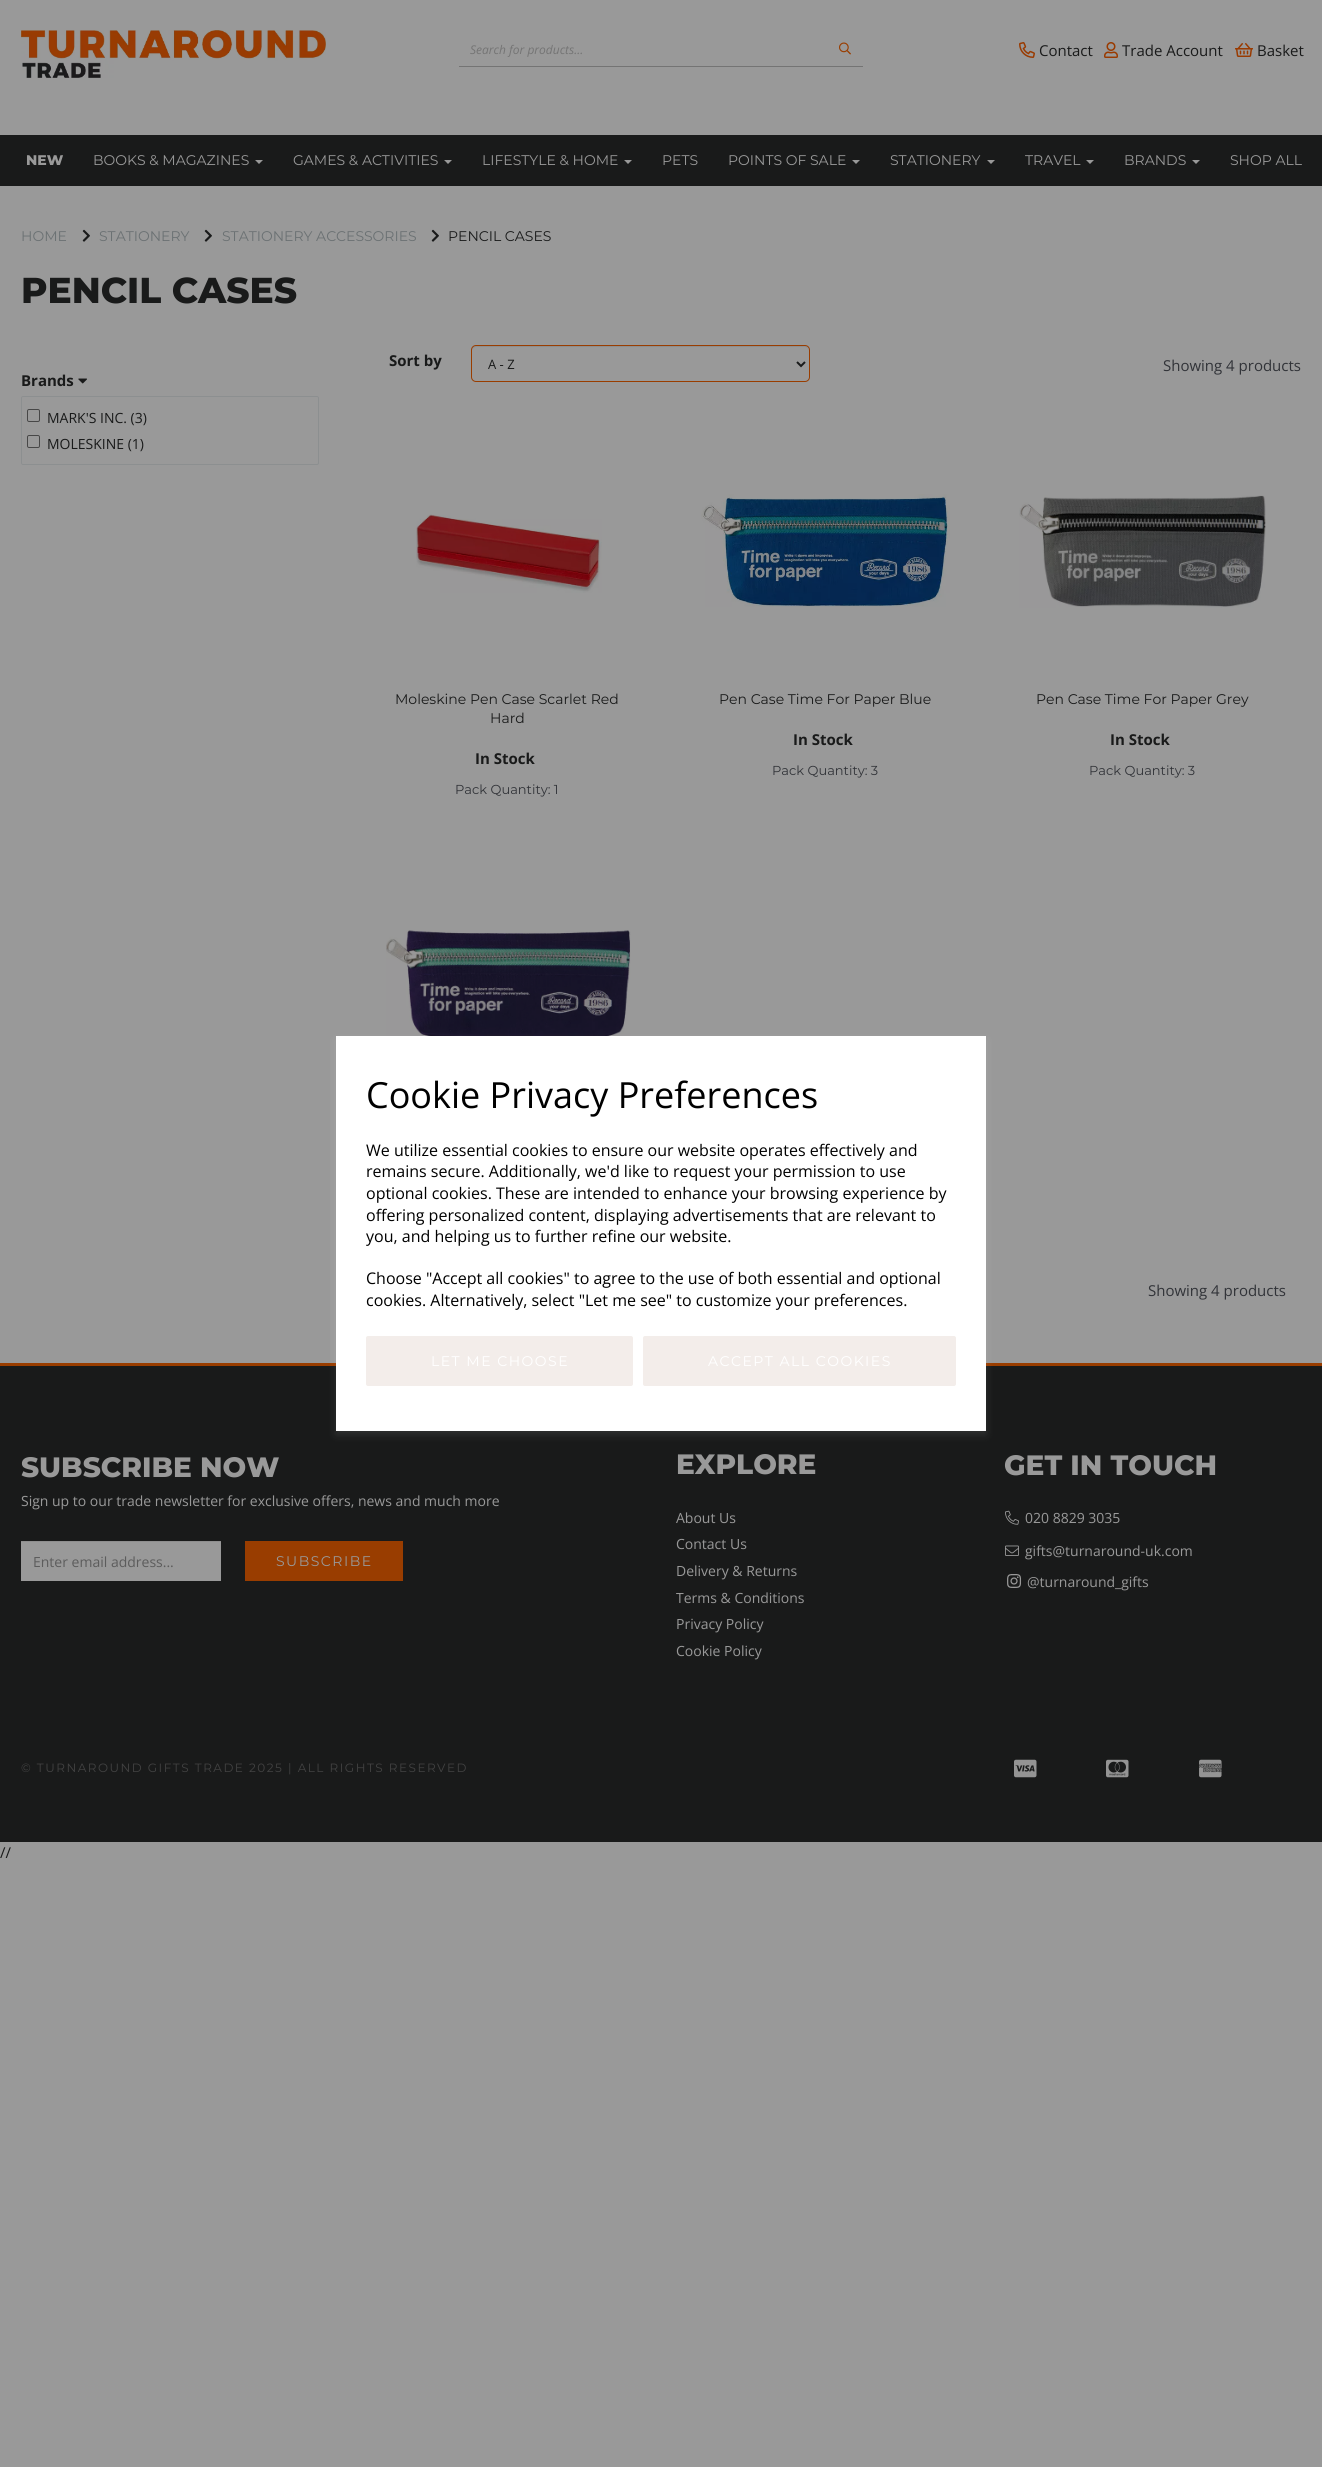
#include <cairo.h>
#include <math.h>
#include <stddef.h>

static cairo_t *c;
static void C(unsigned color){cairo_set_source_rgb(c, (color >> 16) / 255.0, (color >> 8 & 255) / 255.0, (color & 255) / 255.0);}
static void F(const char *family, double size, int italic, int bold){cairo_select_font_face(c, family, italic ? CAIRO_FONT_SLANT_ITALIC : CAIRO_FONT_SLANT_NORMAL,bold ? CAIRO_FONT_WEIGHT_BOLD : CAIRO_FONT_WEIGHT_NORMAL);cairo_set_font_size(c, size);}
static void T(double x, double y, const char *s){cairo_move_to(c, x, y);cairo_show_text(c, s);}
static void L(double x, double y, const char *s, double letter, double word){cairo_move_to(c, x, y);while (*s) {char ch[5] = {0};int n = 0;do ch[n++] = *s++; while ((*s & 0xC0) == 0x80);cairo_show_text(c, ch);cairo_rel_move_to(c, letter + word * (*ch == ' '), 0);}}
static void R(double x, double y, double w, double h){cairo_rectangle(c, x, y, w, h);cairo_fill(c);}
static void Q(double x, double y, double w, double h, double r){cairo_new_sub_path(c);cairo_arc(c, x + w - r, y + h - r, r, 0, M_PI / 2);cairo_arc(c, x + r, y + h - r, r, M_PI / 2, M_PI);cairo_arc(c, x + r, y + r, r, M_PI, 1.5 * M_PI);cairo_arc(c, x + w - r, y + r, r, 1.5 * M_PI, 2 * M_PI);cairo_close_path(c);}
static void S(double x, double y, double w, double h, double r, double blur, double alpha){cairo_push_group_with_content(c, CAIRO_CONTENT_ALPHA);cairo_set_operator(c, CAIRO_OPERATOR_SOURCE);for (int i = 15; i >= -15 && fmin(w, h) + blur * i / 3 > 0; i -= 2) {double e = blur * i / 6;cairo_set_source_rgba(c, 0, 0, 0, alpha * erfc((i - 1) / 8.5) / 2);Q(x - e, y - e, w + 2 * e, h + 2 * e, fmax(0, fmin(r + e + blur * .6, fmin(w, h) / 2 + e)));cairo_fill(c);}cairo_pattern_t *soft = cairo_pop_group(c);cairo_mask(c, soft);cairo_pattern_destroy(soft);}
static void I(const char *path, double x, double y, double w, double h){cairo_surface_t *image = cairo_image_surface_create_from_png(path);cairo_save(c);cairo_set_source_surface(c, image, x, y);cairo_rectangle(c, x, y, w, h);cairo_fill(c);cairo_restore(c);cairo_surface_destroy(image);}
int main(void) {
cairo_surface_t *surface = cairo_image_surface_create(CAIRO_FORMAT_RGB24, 1322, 2467);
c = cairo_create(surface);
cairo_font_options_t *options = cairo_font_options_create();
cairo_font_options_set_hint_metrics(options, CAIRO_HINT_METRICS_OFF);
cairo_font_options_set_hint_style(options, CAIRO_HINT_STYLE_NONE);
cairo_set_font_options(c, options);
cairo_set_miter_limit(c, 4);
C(0x999999);
cairo_paint(c);
I("1.png",21,30,305,48);
C(0x747474);
R(459,66,404,1);
F("Open Sans",12,1,0);
T(470,54,"Search for products...");
I("2.png",839,42,12,13);
I("3.png",1019,42,16,16);
F("Open Sans",15,0,0);
C(0x191a1a);
T(1039,56,"Contact");
I("4.png",1104,42,14,16);
T(1122,56,"Trade Account");
I("5.png",1235,43,18,14);
T(1257,56,"Basket");
R(0,135,1322,51);
F("Montserrat ExtraBold",14,0,0);
C(0x999999);
T(26,165,"NEW");
F("Montserrat",14,0,0);
T(93,165,"BOOKS & MAGAZINES");
cairo_new_path(c);
cairo_move_to(c,255,160);
cairo_line_to(c,263,160);
cairo_line_to(c,259,164);
cairo_close_path(c);
cairo_fill(c);
T(293,165,"GAMES & ACTIVITIES");
cairo_new_path(c);
cairo_move_to(c,444,160);
cairo_line_to(c,452,160);
cairo_line_to(c,448,164);
cairo_close_path(c);
cairo_fill(c);
T(482,165,"LIFESTYLE & HOME");
cairo_new_path(c);
cairo_move_to(c,624,160);
cairo_line_to(c,632,160);
cairo_line_to(c,628,164);
cairo_close_path(c);
cairo_fill(c);
T(662,165,"PETS");
T(728,165,"POINTS OF SALE");
cairo_new_path(c);
cairo_move_to(c,852,160);
cairo_line_to(c,860,160);
cairo_line_to(c,856,164);
cairo_close_path(c);
cairo_fill(c);
T(890,165,"STATIONERY");
cairo_new_path(c);
cairo_move_to(c,987,160);
cairo_line_to(c,995,160);
cairo_line_to(c,991,164);
cairo_close_path(c);
cairo_fill(c);
T(1025,165,"TRAVEL");
cairo_new_path(c);
cairo_move_to(c,1086,160);
cairo_line_to(c,1094,160);
cairo_line_to(c,1090,164);
cairo_close_path(c);
cairo_fill(c);
T(1124,165,"BRANDS");
cairo_new_path(c);
cairo_move_to(c,1192,160);
cairo_line_to(c,1200,160);
cairo_line_to(c,1196,164);
cairo_close_path(c);
cairo_fill(c);
T(1230,165,"SHOP ALL");
C(0x6b7173);
T(21,241,"HOME");
I("6.png",82,229,8,13);
T(99,241,"STATIONERY");
I("6.png",204,229,8,13);
T(222,241,"STATIONERY ACCESSORIES");
I("6.png",431,229,8,13);
C(0x191a1a);
T(448,241,"PENCIL CASES");
F("Montserrat ExtraBold",36,0,0);
T(21,303,"PENCIL CASES");
F("Open Sans",15,0,1);
T(21,386,"Brands");
I("7.png",78,378,9,6);
Q(21.5,396.5,297,68,1.5);
C(0x8c8f90);
cairo_set_line_width(c,1);
cairo_stroke(c);
Q(27.5,409.5,12,12,1.5);
C(0x474747);
cairo_stroke(c);
F("Open Sans",14,0,0);
C(0x191a1a);
T(47,423,"MARK'S INC. (3)");
Q(27.5,435.5,12,12,1.5);
C(0x474747);
cairo_stroke(c);
C(0x191a1a);
T(47,449,"MOLESKINE (1)");
F("Open Sans",15,0,1);
T(389,366,"Sort by");
C(0x8e8e8e);
cairo_new_path(c);
cairo_move_to(c,476,347);
cairo_line_to(c,805,347);
cairo_curve_to(c,807,347,809,349,809,351);
cairo_line_to(c,808,348);
cairo_line_to(c,806,346);
cairo_line_to(c,476,346);
cairo_curve_to(c,473,346,472,348,472,351);
cairo_curve_to(c,472,349,474,347,476,347);
cairo_close_path(c);
cairo_fill(c);
Q(471.5,345.5,338,36,4.5);
C(0x993d00);
cairo_stroke(c);
cairo_new_path(c);
cairo_move_to(c,797,362);
cairo_line_to(c,801,366);
cairo_line_to(c,805,362);
C(0x191a1a);
cairo_set_line_width(c,2);
cairo_stroke(c);
F("Open Sans",13,0,0);
T(488,369,"A - Z");
F("Open Sans",15,0,0);
C(0x313338);
T(1163,371,"Showing 4 products");
I("8.png",416,514,186,79);
F("Montserrat",14,0,0);
C(0x191a1a);
T(395,704,"Moleskine Pen Case Scarlet Red");
T(490,723,"Hard");
F("Open Sans",15,0,1);
T(475,764,"In Stock");
F("Montserrat",13,0,0);
C(0x313338);
T(455,794,"Pack Quantity: 1");
I("9.png",701,494,249,113);
F("Montserrat",14,0,0);
C(0x191a1a);
T(719,704,"Pen Case Time For Paper Blue");
F("Open Sans",15,0,1);
T(793,745,"In Stock");
F("Montserrat",13,0,0);
C(0x313338);
T(772,775,"Pack Quantity: 3");
I("10.png",1019,495,247,113);
F("Montserrat",14,0,0);
C(0x191a1a);
T(1036,704,"Pen Case Time For Paper Grey");
F("Open Sans",15,0,1);
T(1110,745,"In Stock");
F("Montserrat",13,0,0);
C(0x313338);
T(1089,775,"Pack Quantity: 3");
I("11.png",386,930,245,106);
F("Open Sans",15,0,0);
T(1148,1296,"Showing 4 products");
C(0x191a1a);
R(0,1366,1322,476);
C(0x993d00);
R(0,1363,1322,3);
C(0xffffff);
S(336,1040,650,395,0,4,.1);
C(0xffffff);
R(336,1036,650,395);
F("Open Sans",36,0,0);
C(0x000000);
T(366,1108,"Cookie Privacy Preferences");
F("Open Sans",16,0,0);
T(366,1156,"We utilize essential cookies to ensure our website operates effectively and");
T(366,1177,"remains secure. Additionally, we'd like to request your permission to use");
T(366,1199,"optional cookies. These are intended to enhance your browsing experience by");
T(366,1221,"offering personalized content, displaying advertisements that are relevant to");
T(366,1242,"you, and helping us to further refine our website.");
T(366,1284,"Choose \"Accept all cookies\" to agree to the use of both essential and optional");
T(366,1306,"cookies. Alternatively, select \"Let me see\" to customize your preferences.");
C(0xf3edea);
Q(366,1336,267,50,2);
cairo_fill(c);
F("Montserrat",14,0,0);
C(0xffffff);
L(431,1366,"LET ME CHOOSE",1.5,0);
C(0xf3edea);
Q(643,1336,313,50,2);
cairo_fill(c);
C(0xffffff);
L(708,1366,"ACCEPT ALL COOKIES",1.5,0);
F("Montserrat ExtraBold",28,0,0);
C(0x999999);
T(21,1477,"SUBSCRIBE NOW");
F("Open Sans",14,0,0);
T(21,1506,"Sign up to our trade newsletter for exclusive offers, news and much more");
R(21,1542,200,39);
C(0x8e8e8e);
R(21,1541,200,1);
C(0x5c5c5c);
T(33,1567,"Enter email address...");
C(0x993d00);
R(245,1541,158,40);
F("Montserrat",14,0,0);
C(0x999999);
L(276,1566,"SUBSCRIBE",1.5,0);
F("Montserrat ExtraBold",28,0,0);
T(676,1474,"EXPLORE");
F("Open Sans",14,0,0);
T(676,1523,"About Us");
T(676,1549,"Contact Us");
T(676,1576,"Delivery & Returns");
T(676,1603,"Terms & Conditions");
T(676,1629,"Privacy Policy");
T(676,1656,"Cookie Policy");
F("Montserrat ExtraBold",28,0,0);
T(1004,1475,"GET IN TOUCH");
I("12.png",1005,1510,14,15);
F("Open Sans",14,0,0);
T(1025,1523,"020 8829 3035");
I("13.png",1005,1545,14,11);
T(1025,1556,"gifts@turnaround-uk.com");
I("14.png",1007,1574,15,14);
T(1027,1587,"@turnaround_gifts");
F("Montserrat",12,0,0);
C(0x424242);
L(21,1772,"© TURNAROUND GIFTS TRADE 2025 | ALL RIGHTS RESERVED",1.5,0);
I("15.png",1014,1759,23,19);
I("16.png",1106,1759,23,19);
I("17.png",1199,1759,23,19);
F("Open Sans",15,0,0);
C(0x191a1a);
T(0,1858,"//");
cairo_surface_write_to_png(surface, "o.png");
cairo_font_options_destroy(options);
cairo_destroy(c);
cairo_surface_destroy(surface);
return 0;
}
